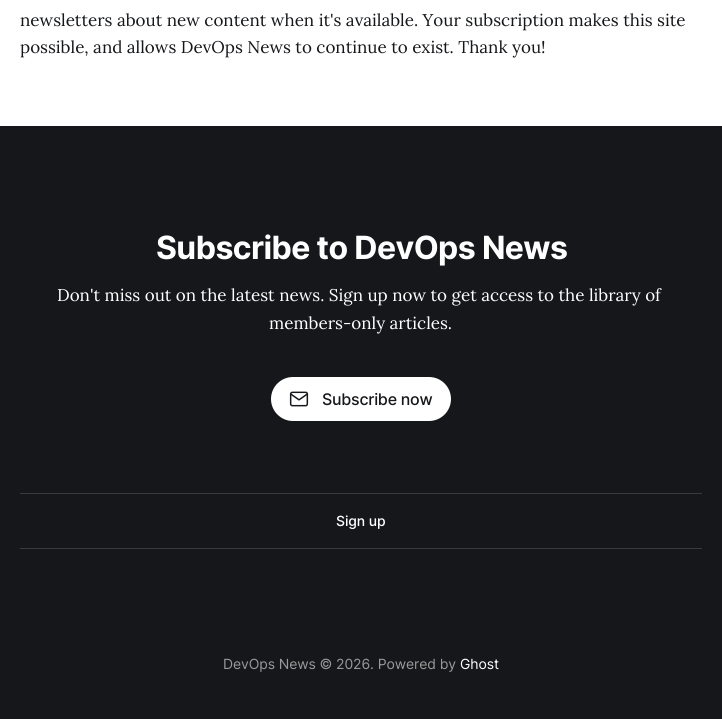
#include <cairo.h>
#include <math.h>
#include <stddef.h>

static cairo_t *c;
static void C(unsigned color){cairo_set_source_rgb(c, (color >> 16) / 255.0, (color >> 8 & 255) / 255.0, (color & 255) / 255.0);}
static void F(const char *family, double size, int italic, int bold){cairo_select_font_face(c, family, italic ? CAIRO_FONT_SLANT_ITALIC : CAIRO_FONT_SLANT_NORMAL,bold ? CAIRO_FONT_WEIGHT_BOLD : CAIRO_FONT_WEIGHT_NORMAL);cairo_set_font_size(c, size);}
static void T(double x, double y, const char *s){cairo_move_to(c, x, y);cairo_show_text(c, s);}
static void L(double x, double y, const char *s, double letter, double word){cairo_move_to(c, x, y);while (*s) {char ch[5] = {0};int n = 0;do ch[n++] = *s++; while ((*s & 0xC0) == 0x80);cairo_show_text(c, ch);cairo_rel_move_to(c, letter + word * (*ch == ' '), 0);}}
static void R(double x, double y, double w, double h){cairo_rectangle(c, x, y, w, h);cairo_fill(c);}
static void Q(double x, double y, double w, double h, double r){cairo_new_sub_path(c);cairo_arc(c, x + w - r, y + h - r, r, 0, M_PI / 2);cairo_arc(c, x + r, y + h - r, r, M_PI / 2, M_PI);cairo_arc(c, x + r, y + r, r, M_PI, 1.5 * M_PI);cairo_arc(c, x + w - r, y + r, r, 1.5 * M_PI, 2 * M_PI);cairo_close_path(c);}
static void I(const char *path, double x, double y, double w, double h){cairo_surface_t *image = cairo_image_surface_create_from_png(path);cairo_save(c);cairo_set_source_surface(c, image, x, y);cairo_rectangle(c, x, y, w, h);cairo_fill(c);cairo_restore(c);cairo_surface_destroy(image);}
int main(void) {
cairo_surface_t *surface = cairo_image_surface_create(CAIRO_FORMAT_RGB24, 722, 719);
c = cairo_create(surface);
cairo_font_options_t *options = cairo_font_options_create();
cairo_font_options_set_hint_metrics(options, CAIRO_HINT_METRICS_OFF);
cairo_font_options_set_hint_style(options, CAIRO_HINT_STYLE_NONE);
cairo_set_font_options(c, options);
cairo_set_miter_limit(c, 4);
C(0xffffff);
cairo_paint(c);
F("Lora",17,0,0);
C(0x15171a);
T(20,26,"newsletters about new content when it's available. Your subscription makes this site");
T(20,53,"possible, and allows DevOps News to continue to exist. Thank you!");
R(0,126,722,593);
F("Inter",32,0,1);
C(0xffffff);
L(156,259,"Subscribe to DevOps News",-.6,0);
F("Lora",17,0,0);
T(57,301,"Don't miss out on the latest news. Sign up now to get access to the library of");
T(269,329,"members-only articles.");
Q(271,377,180,44,22);
cairo_fill(c);
I("1.png",289,391,20,16);
F("Inter Medium",16,0,0);
C(0x15171a);
L(322,405,"Subscribe now",-.25,0);
C(0x383a3c);
R(20,493,682,1);
R(20,548,682,1);
F("Inter Medium",14,0,0);
C(0xffffff);
L(336,526,"Sign up",-.1,0);
F("Inter",14,0,0);
C(0x999999);
L(223,669,"DevOps News © 2026. Powered by",-.1,0);
C(0xffffff);
L(460,669,"Ghost",-.1,0);
cairo_surface_write_to_png(surface, "o.png");
cairo_font_options_destroy(options);
cairo_destroy(c);
cairo_surface_destroy(surface);
return 0;
}
